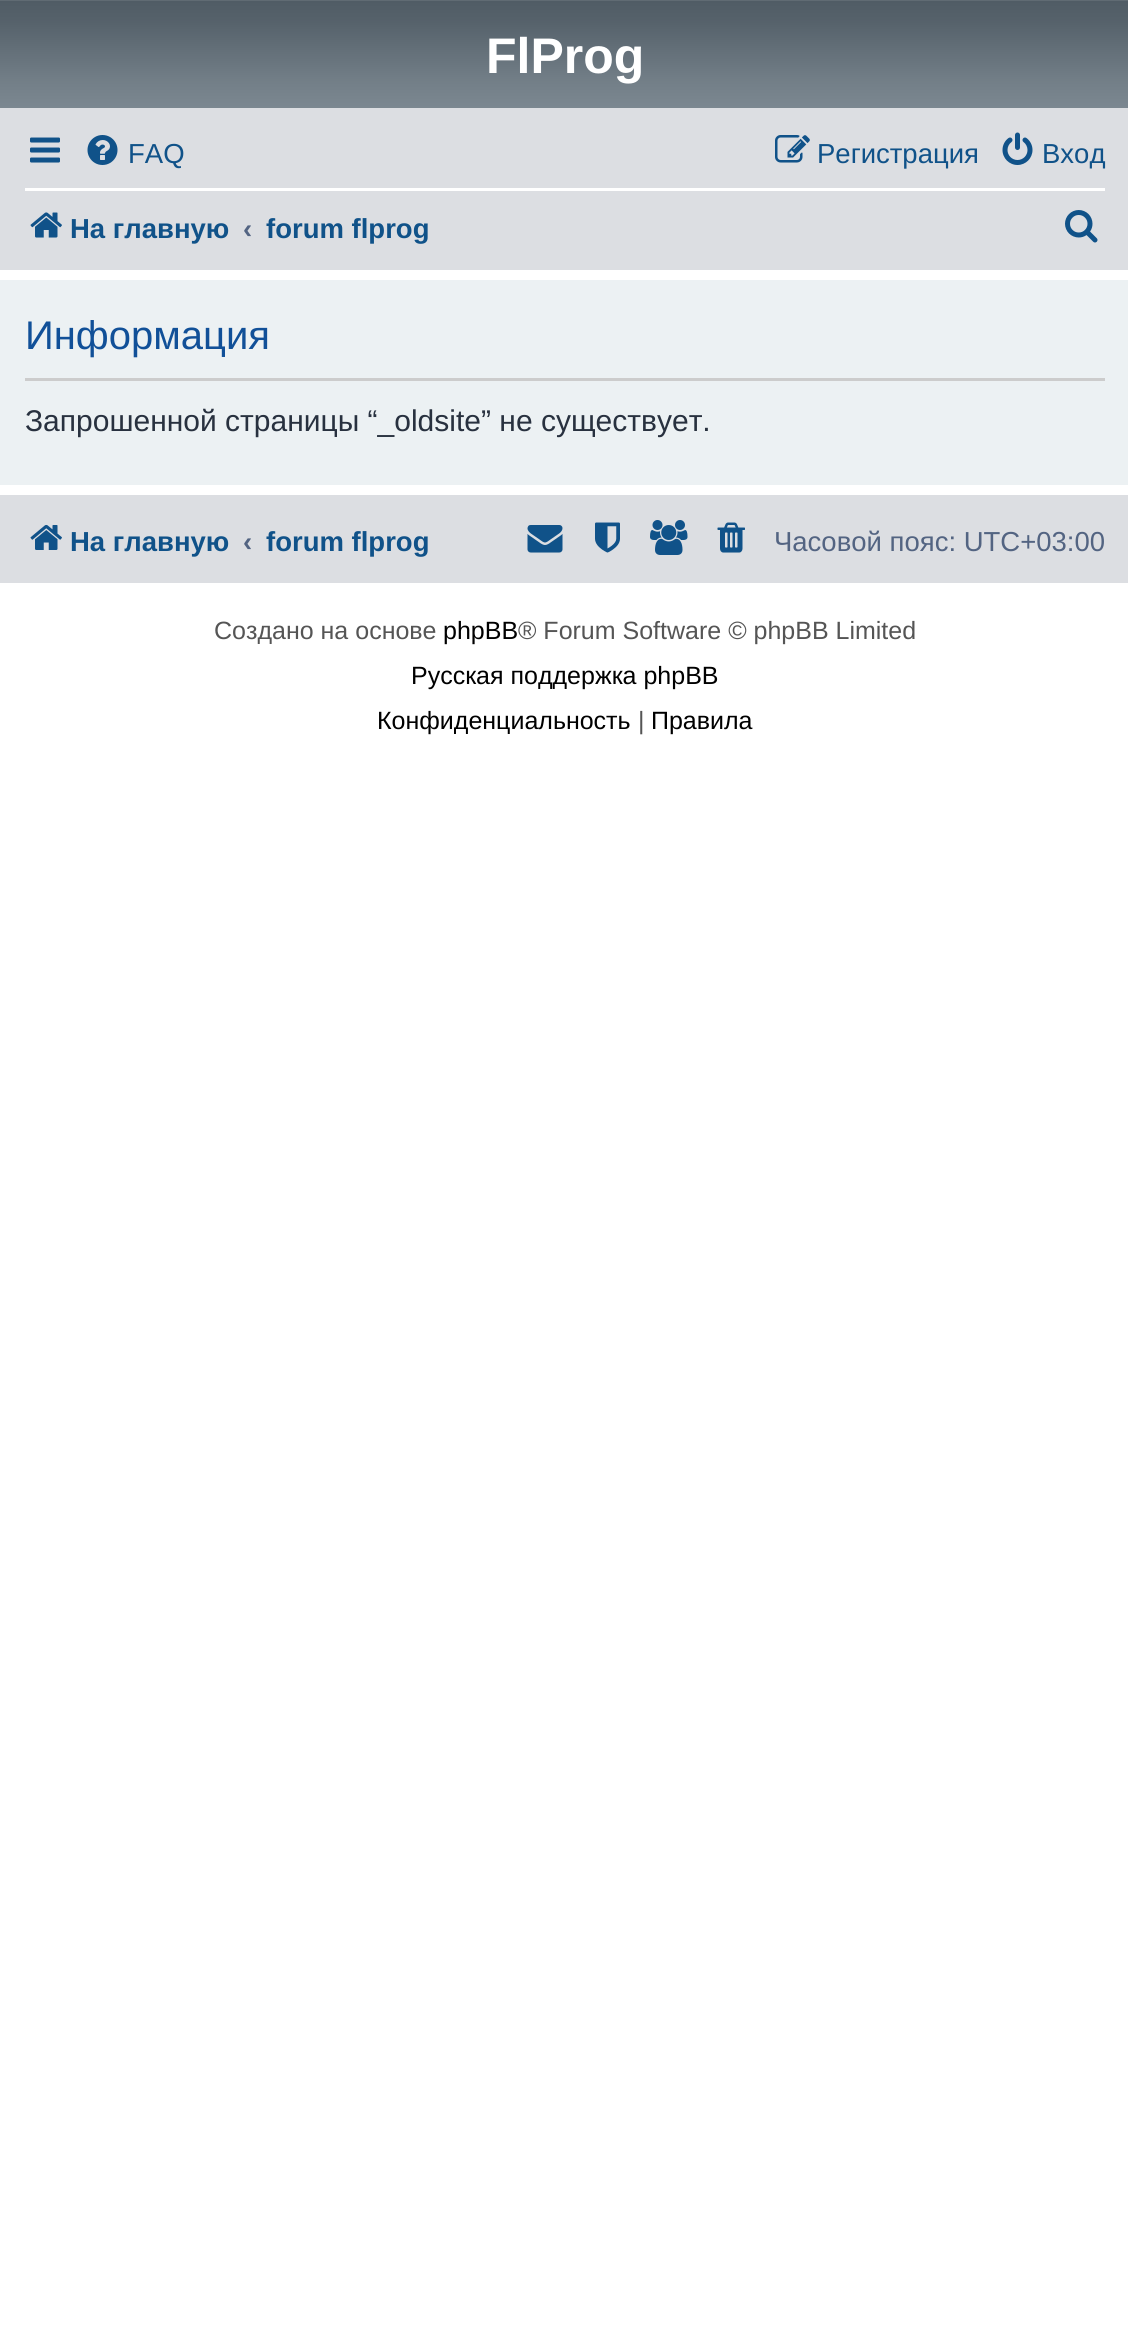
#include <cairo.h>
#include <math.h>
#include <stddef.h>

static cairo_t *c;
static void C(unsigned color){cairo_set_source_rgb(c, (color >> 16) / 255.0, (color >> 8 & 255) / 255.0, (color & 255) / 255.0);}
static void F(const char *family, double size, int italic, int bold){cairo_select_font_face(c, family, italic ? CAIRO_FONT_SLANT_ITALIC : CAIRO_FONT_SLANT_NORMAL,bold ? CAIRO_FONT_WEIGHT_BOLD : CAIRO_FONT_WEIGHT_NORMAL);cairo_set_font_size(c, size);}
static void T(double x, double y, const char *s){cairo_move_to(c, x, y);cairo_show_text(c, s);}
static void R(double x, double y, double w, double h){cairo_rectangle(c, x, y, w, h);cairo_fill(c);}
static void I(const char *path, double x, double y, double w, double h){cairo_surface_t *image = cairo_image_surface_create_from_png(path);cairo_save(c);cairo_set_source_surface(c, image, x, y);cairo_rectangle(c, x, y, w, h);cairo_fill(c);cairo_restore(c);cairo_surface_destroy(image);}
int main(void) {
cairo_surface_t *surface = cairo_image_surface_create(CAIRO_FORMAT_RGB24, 1128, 2347);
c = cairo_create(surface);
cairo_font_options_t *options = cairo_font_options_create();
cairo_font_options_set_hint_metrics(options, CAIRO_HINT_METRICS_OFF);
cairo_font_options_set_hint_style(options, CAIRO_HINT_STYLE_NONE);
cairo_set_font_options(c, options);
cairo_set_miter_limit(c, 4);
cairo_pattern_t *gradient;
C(0xffffff);
cairo_paint(c);
gradient = cairo_pattern_create_linear(565,0,565,110);
cairo_pattern_add_color_stop_rgba(gradient,0,0.431,0.467,0.498,1);
cairo_pattern_add_color_stop_rgba(gradient,.01,0.314,0.361,0.396,1);
cairo_pattern_add_color_stop_rgba(gradient,.2,0.337,0.384,0.42,1);
cairo_pattern_add_color_stop_rgba(gradient,.75,0.451,0.498,0.533,1);
cairo_pattern_add_color_stop_rgba(gradient,1,0.486,0.533,0.569,1);
cairo_set_source(c,gradient);
cairo_pattern_destroy(gradient);
R(0,0,1128,108);
F("Liberation Sans",50,0,1);
C(0xffffff);
T(486,73,"FlProg");
C(0xdcdee2);
R(0,108,1128,162);
I("1.png",30,137,30,26);
I("2.png",87,135,31,30);
F("Liberation Sans",27.5,0,0);
C(0x105289);
T(128,163,"FAQ");
I("3.png",775,135,35,28);
T(817,163,"Регистрация");
I("4.png",1002,132,31,33);
T(1042,163,"Вход");
C(0xffffff);
R(25,188,1080,3);
I("5.png",30,212,32,26);
F("Liberation Sans",27.5,0,1);
C(0x105289);
T(70,238,"На главную");
C(0x536482);
T(243,238,"‹");
C(0x105289);
T(266,238,"forum flprog");
I("6.png",1065,210,33,33);
C(0xecf1f3);
R(0,280,1128,205);
C(0xcccccc);
R(25,378,1080,3);
F("Liberation Sans",40,0,0);
C(0x115098);
T(25,349,"Информация");
F("Liberation Sans",30,0,0);
C(0x28313f);
T(25,431,"Запрошенной страницы “_oldsite” не существует.");
C(0xdcdee2);
R(0,495,1128,88);
I("7.png",30,524,32,26);
F("Liberation Sans",27.5,0,1);
C(0x105289);
T(70,551,"На главную");
C(0x536482);
T(243,551,"‹");
C(0x105289);
T(266,551,"forum flprog");
I("8.png",527,525,36,28);
I("9.png",595,522,25,31);
I("10.png",650,520,38,35);
I("11.png",717,522,28,31);
F("Liberation Sans",27.5,0,0);
C(0x536482);
T(774,551,"Часовой пояс: UTC+03:00");
F("Liberation Sans",25,0,0);
C(0x555555);
T(214,639,"Создано на основе");
C(0x000000);
T(443,639,"phpBB");
C(0x555555);
T(518,639,"® Forum Software © phpBB Limited");
C(0x000000);
T(411,684,"Русская поддержка phpBB");
T(377,729,"Конфиденциальность");
C(0x555555);
T(638,729,"|");
C(0x000000);
T(651,729,"Правила");
cairo_surface_write_to_png(surface, "o.png");
cairo_font_options_destroy(options);
cairo_destroy(c);
cairo_surface_destroy(surface);
return 0;
}
